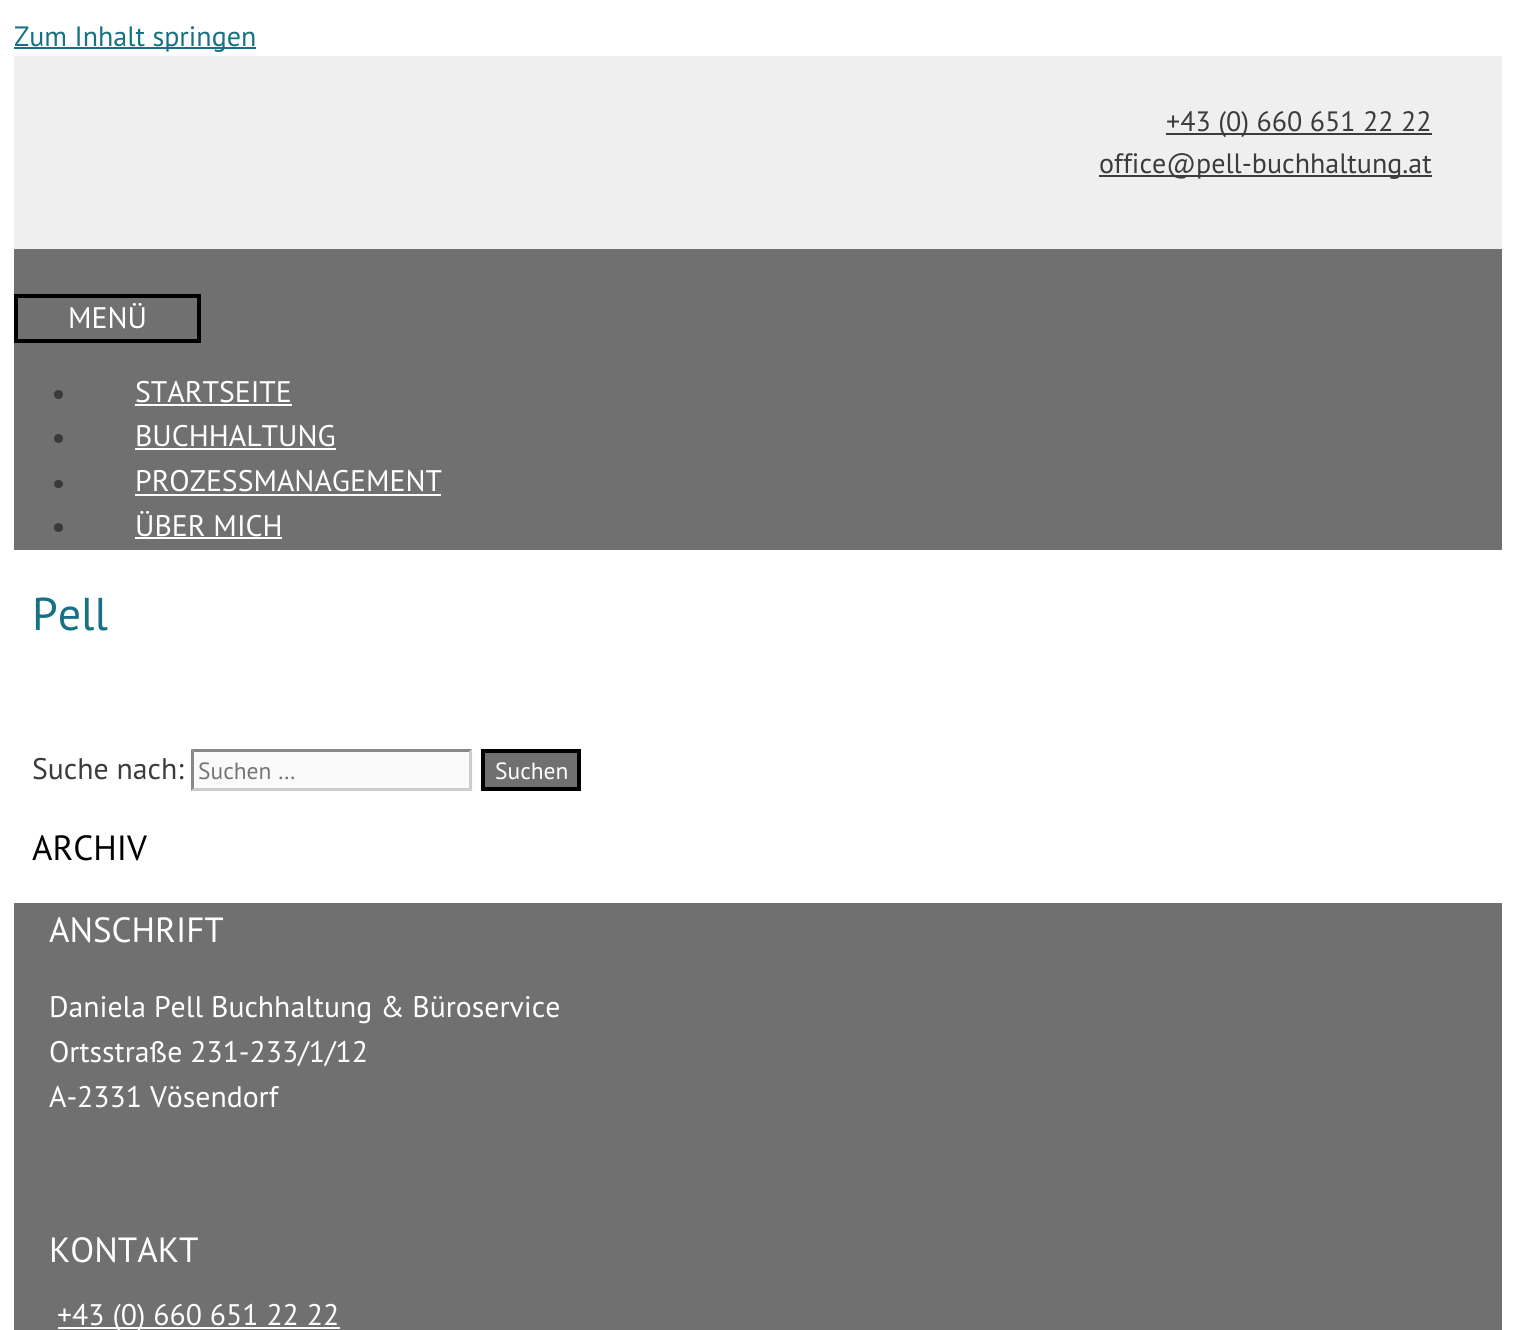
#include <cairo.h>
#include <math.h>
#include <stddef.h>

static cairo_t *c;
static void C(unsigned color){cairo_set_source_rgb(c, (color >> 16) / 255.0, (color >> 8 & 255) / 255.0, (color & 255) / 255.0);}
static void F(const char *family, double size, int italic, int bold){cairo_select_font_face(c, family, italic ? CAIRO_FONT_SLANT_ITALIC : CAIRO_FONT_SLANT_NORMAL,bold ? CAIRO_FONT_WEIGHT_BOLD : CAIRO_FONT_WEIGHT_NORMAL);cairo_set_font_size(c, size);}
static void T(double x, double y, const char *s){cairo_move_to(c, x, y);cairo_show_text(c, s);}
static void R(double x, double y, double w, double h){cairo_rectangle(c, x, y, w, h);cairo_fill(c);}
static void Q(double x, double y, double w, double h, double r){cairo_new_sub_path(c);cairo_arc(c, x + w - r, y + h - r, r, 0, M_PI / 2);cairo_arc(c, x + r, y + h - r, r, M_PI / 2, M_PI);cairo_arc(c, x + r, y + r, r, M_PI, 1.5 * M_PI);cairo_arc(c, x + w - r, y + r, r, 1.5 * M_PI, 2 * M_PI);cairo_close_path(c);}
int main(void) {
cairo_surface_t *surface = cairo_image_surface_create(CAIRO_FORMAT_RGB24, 1515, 1330);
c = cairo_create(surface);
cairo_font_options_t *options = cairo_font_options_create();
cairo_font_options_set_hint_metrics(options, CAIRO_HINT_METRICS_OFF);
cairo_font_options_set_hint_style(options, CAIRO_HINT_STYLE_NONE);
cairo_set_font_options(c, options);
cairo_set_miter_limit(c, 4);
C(0xffffff);
cairo_paint(c);
C(0x157183);
R(14,47,242,2);
F("PT Sans",28,0,0);
T(14,46,"Zum Inhalt springen");
C(0xefefef);
R(14,56,1488,193);
C(0x3c3c3c);
R(1166,133,266,2);
T(1166,131,"+43 (0) 660 651 22 22");
R(1099,175,333,2);
T(1099,173,"office@pell-buchhaltung.at");
C(0x707070);
R(14,249,1488,301);
cairo_rectangle(c,16,296,183,45);
C(0x000000);
cairo_set_line_width(c,4);
cairo_stroke(c);
F("PT Sans",29.75,0,0);
C(0xffffff);
T(68,328,"MENÜ");
C(0x3a3a3a);
cairo_new_path(c);
cairo_arc(c,58.5,394.5,4.5,0,2 * M_PI);
cairo_fill(c);
C(0xffffff);
T(135,402,"STARTSEITE");
R(135,404,157,2);
C(0x3a3a3a);
cairo_new_path(c);
cairo_arc(c,58.5,438.5,4.5,0,2 * M_PI);
cairo_fill(c);
C(0xffffff);
T(135,446,"BUCHHALTUNG");
R(135,448,201,2);
C(0x3a3a3a);
Q(54,480,9,8,4);
cairo_fill(c);
C(0xffffff);
T(135,491,"PROZESSMANAGEMENT");
R(135,494,306,2);
C(0x3a3a3a);
cairo_new_path(c);
cairo_arc(c,58.5,527.5,4.5,0,2 * M_PI);
cairo_fill(c);
C(0xffffff);
T(135,536,"ÜBER MICH");
R(135,537,147,2);
F("PT Sans",46,0,0);
C(0x157183);
T(32,630,"Pell");
F("PT Sans",29.75,0,0);
C(0x3c3c3c);
T(32,779,"Suche nach:");
C(0xfafafa);
R(191,749,282,42);
C(0x888888);
cairo_new_path(c);
cairo_move_to(c,191,749);
cairo_line_to(c,472,749);
cairo_line_to(c,469,752);
cairo_line_to(c,194,752);
cairo_close_path(c);
cairo_fill(c);
C(0xcccccc);
cairo_new_path(c);
cairo_move_to(c,472,749);
cairo_line_to(c,472,791);
cairo_line_to(c,469,788);
cairo_line_to(c,469,752);
cairo_close_path(c);
cairo_fill(c);
cairo_new_path(c);
cairo_move_to(c,472,791);
cairo_line_to(c,191,791);
cairo_line_to(c,194,788);
cairo_line_to(c,469,788);
cairo_close_path(c);
cairo_fill(c);
C(0x888888);
cairo_new_path(c);
cairo_move_to(c,191,791);
cairo_line_to(c,191,749);
cairo_line_to(c,194,752);
cairo_line_to(c,194,788);
cairo_close_path(c);
cairo_fill(c);
F("PT Sans",23.5,0,0);
C(0x757575);
T(198,779,"Suchen …");
C(0x707070);
cairo_rectangle(c,483,751,96,38);
cairo_fill_preserve(c);
C(0x000000);
cairo_stroke(c);
C(0xffffff);
T(495,779,"Suchen");
F("PT Sans",35,0,0);
C(0x000000);
T(32,860,"ARCHIV");
C(0x707070);
R(14,903,1488,427);
C(0xffffff);
T(49,942,"ANSCHRIFT");
F("PT Sans",29.75,0,0);
T(49,1017,"Daniela Pell Buchhaltung & Büroservice");
T(49,1062,"Ortsstraße 231-233/1/12");
T(49,1107,"A-2331 Vösendorf");
F("PT Sans",35,0,0);
T(49,1262,"KONTAKT");
R(58,1327,282,2);
F("PT Sans",29.75,0,0);
T(57,1325,"+43 (0) 660 651 22 22");
cairo_surface_write_to_png(surface, "o.png");
cairo_font_options_destroy(options);
cairo_destroy(c);
cairo_surface_destroy(surface);
return 0;
}
